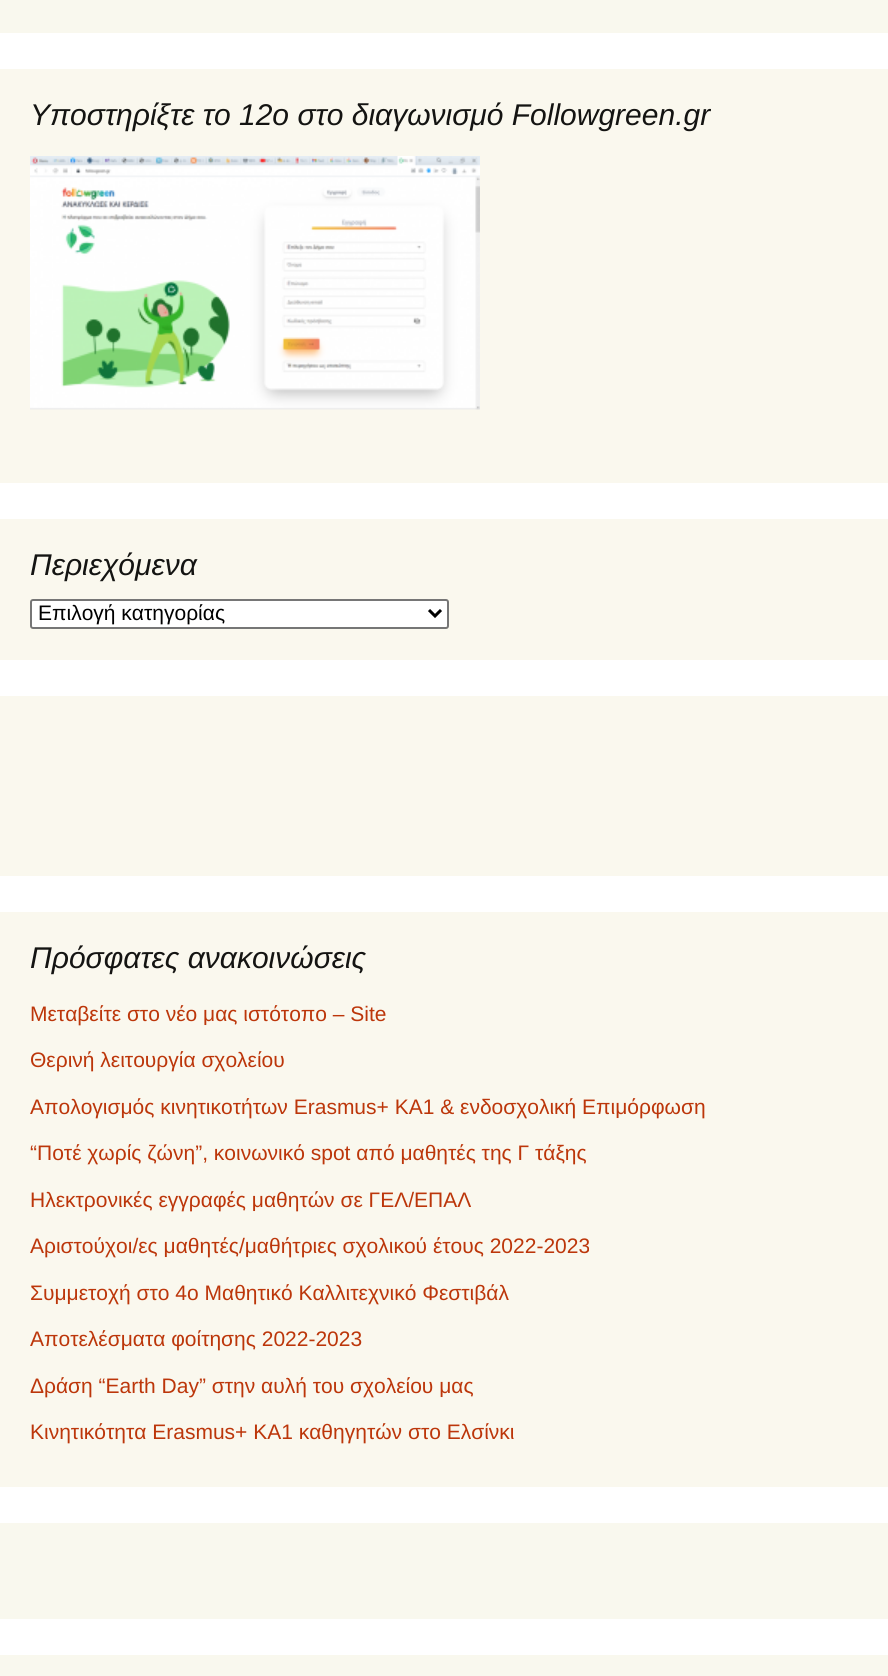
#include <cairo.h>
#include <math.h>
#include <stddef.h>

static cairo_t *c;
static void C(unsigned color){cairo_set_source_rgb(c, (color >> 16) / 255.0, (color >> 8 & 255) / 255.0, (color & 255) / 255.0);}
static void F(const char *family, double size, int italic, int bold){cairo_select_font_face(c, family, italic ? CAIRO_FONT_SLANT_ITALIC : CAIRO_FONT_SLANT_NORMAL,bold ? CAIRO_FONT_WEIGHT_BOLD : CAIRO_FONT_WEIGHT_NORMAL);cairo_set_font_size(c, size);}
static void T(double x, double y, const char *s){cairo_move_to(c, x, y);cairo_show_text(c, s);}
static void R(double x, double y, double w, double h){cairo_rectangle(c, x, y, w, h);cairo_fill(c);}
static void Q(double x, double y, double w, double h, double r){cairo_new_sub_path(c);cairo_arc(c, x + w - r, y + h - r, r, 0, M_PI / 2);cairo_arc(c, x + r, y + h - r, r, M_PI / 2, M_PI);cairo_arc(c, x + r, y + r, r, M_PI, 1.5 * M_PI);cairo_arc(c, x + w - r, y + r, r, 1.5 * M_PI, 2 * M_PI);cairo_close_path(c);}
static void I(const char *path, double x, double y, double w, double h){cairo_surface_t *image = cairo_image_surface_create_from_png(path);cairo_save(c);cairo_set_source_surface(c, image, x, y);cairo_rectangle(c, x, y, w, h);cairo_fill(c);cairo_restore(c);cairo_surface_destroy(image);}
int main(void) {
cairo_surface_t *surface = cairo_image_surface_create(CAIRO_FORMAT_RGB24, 888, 1676);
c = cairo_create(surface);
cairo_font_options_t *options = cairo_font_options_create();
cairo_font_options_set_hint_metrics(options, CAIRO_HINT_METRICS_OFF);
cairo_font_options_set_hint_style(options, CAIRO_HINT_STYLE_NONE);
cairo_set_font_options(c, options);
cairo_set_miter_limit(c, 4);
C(0xffffff);
cairo_paint(c);
C(0xf9f8ee);
R(0,0,888,33);
C(0xfaf8ee);
R(0,69,888,414);
F("Liberation Sans",30,1,0);
C(0x141412);
T(30,125,"Υποστηρίξτε το 12ο στο διαγωνισμό Followgreen.gr");
I("1.png",30,156,450,254);
C(0xfaf8ee);
R(0,519,888,141);
C(0x141412);
T(30,575,"Περιεχόμενα");
C(0xffffff);
Q(31,600,417,28,2);
cairo_fill_preserve(c);
C(0x767676);
cairo_stroke(c);
cairo_new_path(c);
cairo_move_to(c,429,610);
cairo_line_to(c,435,616);
cairo_line_to(c,441,610);
C(0x000000);
cairo_set_line_width(c,3);
cairo_stroke(c);
F("Liberation Sans",21,0,0);
T(38,620,"Επιλογή κατηγορίας");
C(0xfaf8ee);
R(0,696,888,180);
R(0,912,888,575);
F("Liberation Sans",30,1,0);
C(0x141412);
T(30,968,"Πρόσφατες ανακοινώσεις");
F("Liberation Sans",21,0,0);
C(0xbc360a);
T(30,1021,"Μεταβείτε στο νέο μας ιστότοπο – Site");
T(30,1067,"Θερινή λειτουργία σχολείου");
T(30,1114,"Απολογισμός κινητικοτήτων Erasmus+ ΚΑ1 & ενδοσχολική Επιμόρφωση");
T(30,1160,"“Ποτέ χωρίς ζώνη”, κοινωνικό spot από μαθητές της Γ τάξης");
T(30,1207,"Ηλεκτρονικές εγγραφές μαθητών σε ΓΕΛ/ΕΠΑΛ");
T(30,1253,"Αριστούχοι/ες μαθητές/μαθήτριες σχολικού έτους 2022-2023");
T(30,1300,"Συμμετοχή στο 4ο Μαθητικό Καλλιτεχνικό Φεστιβάλ");
T(30,1346,"Αποτελέσματα φοίτησης 2022-2023");
T(30,1393,"Δράση “Earth Day” στην αυλή του σχολείου μας");
T(30,1439,"Κινητικότητα Erasmus+ KA1 καθηγητών στο Ελσίνκι");
C(0xf9f8ee);
R(0,1523,888,96);
R(0,1655,888,21);
cairo_surface_write_to_png(surface, "o.png");
cairo_font_options_destroy(options);
cairo_destroy(c);
cairo_surface_destroy(surface);
return 0;
}
